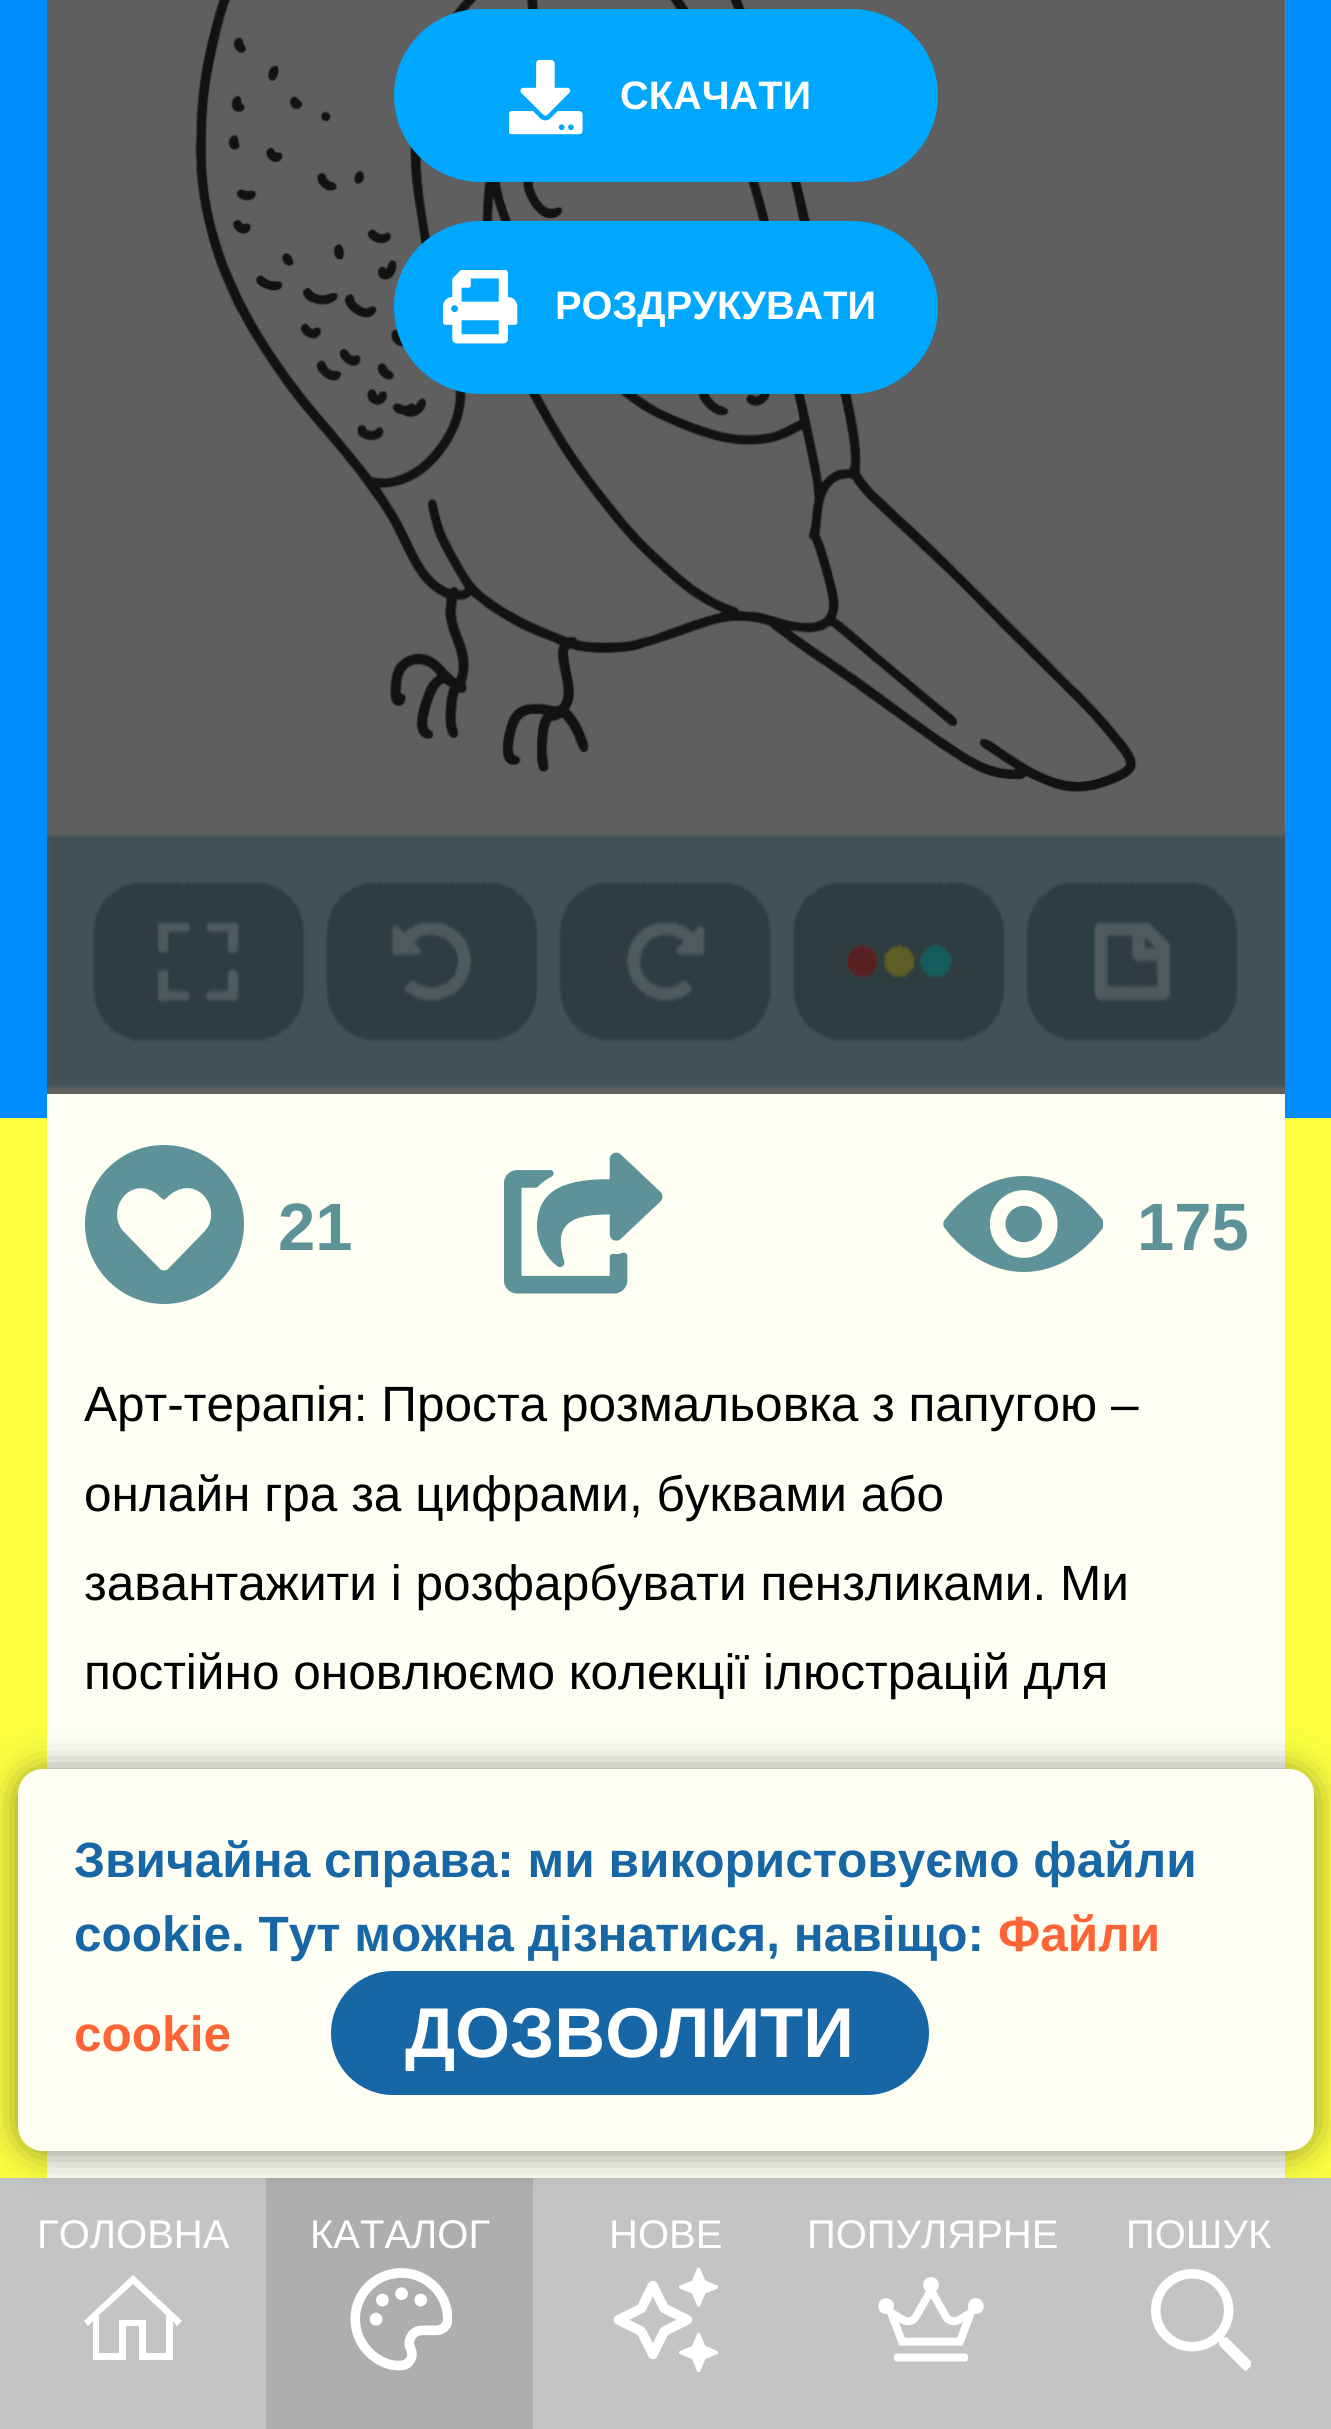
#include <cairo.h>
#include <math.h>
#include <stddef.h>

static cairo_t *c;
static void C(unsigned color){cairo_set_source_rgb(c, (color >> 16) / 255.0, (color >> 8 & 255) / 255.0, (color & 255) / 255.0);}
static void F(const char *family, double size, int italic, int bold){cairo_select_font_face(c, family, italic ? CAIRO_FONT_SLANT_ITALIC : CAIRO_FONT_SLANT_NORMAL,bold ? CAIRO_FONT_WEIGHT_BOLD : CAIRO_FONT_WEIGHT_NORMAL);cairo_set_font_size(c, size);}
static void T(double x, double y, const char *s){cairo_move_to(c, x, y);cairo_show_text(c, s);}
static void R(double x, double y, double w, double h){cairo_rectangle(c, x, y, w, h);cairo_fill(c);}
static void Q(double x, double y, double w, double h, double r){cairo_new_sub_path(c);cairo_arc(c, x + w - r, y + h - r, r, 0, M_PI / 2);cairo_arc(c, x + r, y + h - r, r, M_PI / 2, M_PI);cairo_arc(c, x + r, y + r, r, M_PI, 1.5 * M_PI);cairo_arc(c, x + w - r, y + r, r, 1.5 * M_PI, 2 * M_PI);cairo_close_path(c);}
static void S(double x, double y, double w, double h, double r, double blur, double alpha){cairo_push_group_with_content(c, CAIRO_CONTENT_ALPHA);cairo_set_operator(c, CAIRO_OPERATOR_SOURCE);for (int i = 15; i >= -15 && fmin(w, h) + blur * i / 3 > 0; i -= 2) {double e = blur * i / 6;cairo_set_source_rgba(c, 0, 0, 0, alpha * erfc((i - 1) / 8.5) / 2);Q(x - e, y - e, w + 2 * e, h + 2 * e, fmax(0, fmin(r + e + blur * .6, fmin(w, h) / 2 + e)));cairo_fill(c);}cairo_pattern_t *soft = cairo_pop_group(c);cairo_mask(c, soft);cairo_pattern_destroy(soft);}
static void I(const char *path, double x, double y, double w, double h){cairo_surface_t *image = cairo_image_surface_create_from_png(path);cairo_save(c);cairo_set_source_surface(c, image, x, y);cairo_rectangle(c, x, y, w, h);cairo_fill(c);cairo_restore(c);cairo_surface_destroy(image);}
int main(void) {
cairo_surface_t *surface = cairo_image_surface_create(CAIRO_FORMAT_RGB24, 1331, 2429);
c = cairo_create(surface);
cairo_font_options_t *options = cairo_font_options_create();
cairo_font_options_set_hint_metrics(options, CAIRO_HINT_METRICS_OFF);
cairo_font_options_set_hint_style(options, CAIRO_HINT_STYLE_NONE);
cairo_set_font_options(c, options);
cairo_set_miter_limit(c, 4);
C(0x008bff);
cairo_paint(c);
C(0xfbff40);
R(0,1118,1331,1060);
C(0xfefff2);
R(47,1094,1238,1084);
C(0x5f5f5f);
R(47,0,1238,1094);
I("1.png",195,0,1091,831);
C(0x00a7ff);
Q(394,9,544,173,86.5);
cairo_fill(c);
I("2.png",509,59,74,76);
F("Liberation Sans",39.75,0,1);
C(0xffffff);
T(620,109,"СКАЧАТИ");
C(0x00a7ff);
Q(394,221,544,173,86.5);
cairo_fill(c);
I("3.png",443,270,75,74);
C(0xffffff);
T(555,319,"РОЗДРУКУВАТИ");
I("4.png",47,833,1238,256);
C(0x5d9298);
cairo_new_path(c);
cairo_move_to(c,164,1145);
cairo_curve_to(c,120,1145,85,1180,85,1224);
cairo_curve_to(c,85,1268,120,1304,164,1304);
cairo_curve_to(c,208,1304,244,1268,244,1224);
cairo_curve_to(c,244,1180,208,1145,164,1145);
cairo_close_path(c);
cairo_move_to(c,204,1232);
cairo_line_to(c,168,1269);
cairo_curve_to(c,166,1271,162,1271,160,1269);
cairo_line_to(c,124,1232);
cairo_curve_to(c,114,1222,115,1204,126,1194);
cairo_curve_to(c,136,1185,151,1187,160,1197);
cairo_line_to(c,164,1200);
cairo_curve_to(c,168,1197,171,1193,176,1191);
cairo_curve_to(c,201,1178,223,1212,204,1232);
cairo_close_path(c);
cairo_fill(c);
F("Liberation Sans",67,0,1);
T(278,1250,"21");
I("5.png",504,1152,159,142);
I("6.png",943,1176,160,96);
T(1137,1250,"175");
F("Liberation Sans",49.55,0,0);
C(0x000000);
T(84,1421,"Арт-терапія: Проста розмальовка з папугою –");
T(84,1511,"онлайн гра за цифрами, буквами або");
T(84,1600,"завантажити і розфарбувати пензликами. Ми");
T(84,1689,"постійно оновлюємо колекції ілюстрацій для");
C(0xc4c4c4);
R(0,2178,1331,251);
C(0xb0adad);
R(266,2178,267,251);
C(0x15191e);
S(18,1771,1296,382,25,18,.5);
C(0xfefff2);
Q(18,1769,1296,382,25);
cairo_fill(c);
F("Liberation Sans",49.55,0,1);
C(0x1766a6);
T(74,1877,"Звичайна справа: ми використовуємо файли");
T(74,1951,"cookie. Тут можна дізнатися, навіщо:");
C(0xff6436);
T(998,1951,"Файли");
T(74,2051,"cookie");
C(0x1766a6);
Q(331,1971,598,124,62);
cairo_fill(c);
F("Liberation Sans",70.5,0,1);
C(0xffffff);
T(405,2057,"ДОЗВОЛИТИ");
F("Liberation Sans",40,0,0);
T(37,2248,"ГОЛОВНА");
cairo_new_path(c);
cairo_move_to(c,133,2275);
cairo_line_to(c,84,2321);
cairo_line_to(c,88,2326);
cairo_line_to(c,93,2321);
cairo_line_to(c,93,2360);
cairo_line_to(c,126,2360);
cairo_line_to(c,126,2326);
cairo_line_to(c,139,2326);
cairo_line_to(c,139,2360);
cairo_line_to(c,173,2360);
cairo_line_to(c,173,2321);
cairo_line_to(c,177,2326);
cairo_line_to(c,182,2321);
cairo_close_path(c);
cairo_move_to(c,133,2284);
cairo_line_to(c,166,2315);
cairo_line_to(c,166,2353);
cairo_line_to(c,146,2353);
cairo_line_to(c,146,2320);
cairo_line_to(c,119,2320);
cairo_line_to(c,119,2353);
cairo_line_to(c,99,2353);
cairo_line_to(c,99,2315);
cairo_close_path(c);
cairo_fill(c);
T(310,2248,"КАТАЛОГ");
I("7.png",350,2268,102,103);
T(609,2248,"НОВЕ");
I("8.png",613,2267,105,105);
T(807,2248,"ПОПУЛЯРНЕ");
I("9.png",878,2277,106,85);
T(1126,2248,"ПОШУК");
I("10.png",1151,2269,100,102);
cairo_surface_write_to_png(surface, "o.png");
cairo_font_options_destroy(options);
cairo_destroy(c);
cairo_surface_destroy(surface);
return 0;
}
